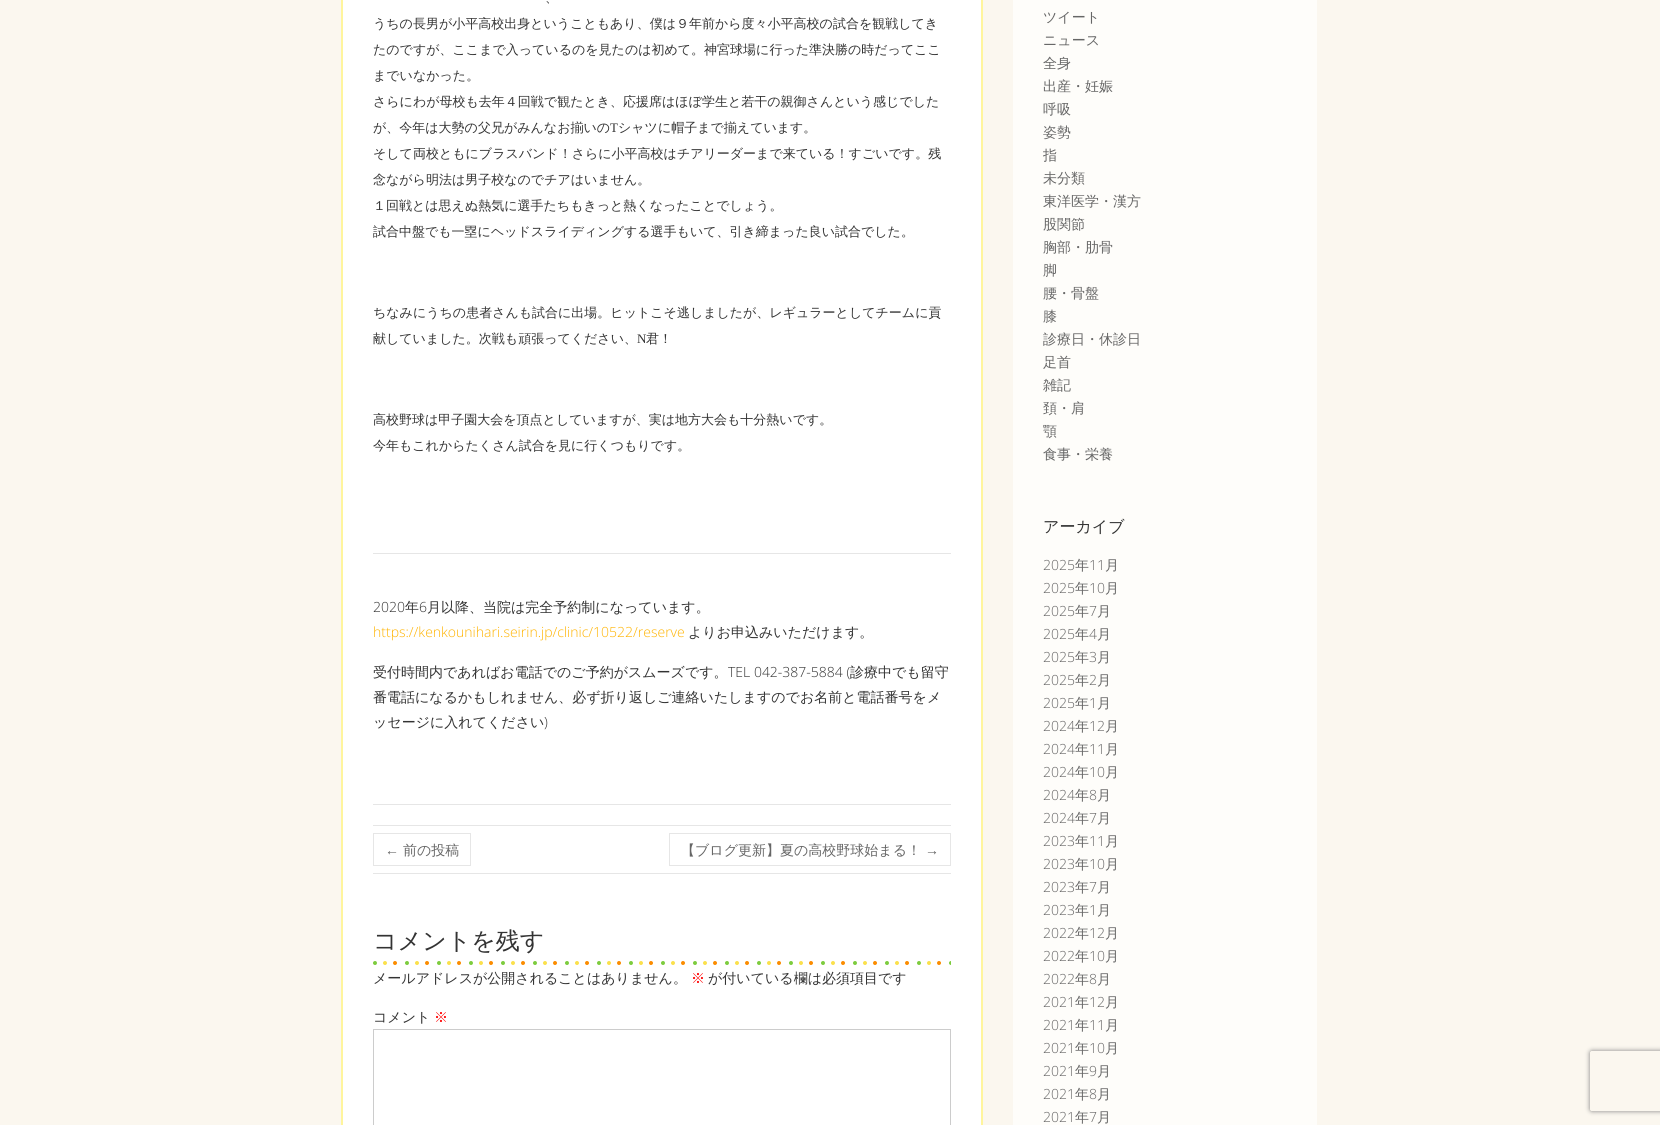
#include <cairo.h>
#include <math.h>
#include <stddef.h>

static cairo_t *c;
static void C(unsigned color){cairo_set_source_rgb(c, (color >> 16) / 255.0, (color >> 8 & 255) / 255.0, (color & 255) / 255.0);}
static void F(const char *family, double size, int italic, int bold){cairo_select_font_face(c, family, italic ? CAIRO_FONT_SLANT_ITALIC : CAIRO_FONT_SLANT_NORMAL,bold ? CAIRO_FONT_WEIGHT_BOLD : CAIRO_FONT_WEIGHT_NORMAL);cairo_set_font_size(c, size);}
static void T(double x, double y, const char *s){cairo_move_to(c, x, y);cairo_show_text(c, s);}
static void R(double x, double y, double w, double h){cairo_rectangle(c, x, y, w, h);cairo_fill(c);}
static void Q(double x, double y, double w, double h, double r){cairo_new_sub_path(c);cairo_arc(c, x + w - r, y + h - r, r, 0, M_PI / 2);cairo_arc(c, x + r, y + h - r, r, M_PI / 2, M_PI);cairo_arc(c, x + r, y + r, r, M_PI, 1.5 * M_PI);cairo_arc(c, x + w - r, y + r, r, 1.5 * M_PI, 2 * M_PI);cairo_close_path(c);}
static void S(double x, double y, double w, double h, double r, double blur, double alpha){cairo_push_group_with_content(c, CAIRO_CONTENT_ALPHA);cairo_set_operator(c, CAIRO_OPERATOR_SOURCE);for (int i = 15; i >= -15 && fmin(w, h) + blur * i / 3 > 0; i -= 2) {double e = blur * i / 6;cairo_set_source_rgba(c, 0, 0, 0, alpha * erfc((i - 1) / 8.5) / 2);Q(x - e, y - e, w + 2 * e, h + 2 * e, fmax(0, fmin(r + e + blur * .6, fmin(w, h) / 2 + e)));cairo_fill(c);}cairo_pattern_t *soft = cairo_pop_group(c);cairo_mask(c, soft);cairo_pattern_destroy(soft);}
static void I(const char *path, double x, double y, double w, double h){cairo_surface_t *image = cairo_image_surface_create_from_png(path);cairo_save(c);cairo_set_source_surface(c, image, x, y);cairo_rectangle(c, x, y, w, h);cairo_fill(c);cairo_restore(c);cairo_surface_destroy(image);}
int main(void) {
cairo_surface_t *surface = cairo_image_surface_create(CAIRO_FORMAT_RGB24, 1660, 1125);
c = cairo_create(surface);
cairo_font_options_t *options = cairo_font_options_create();
cairo_font_options_set_hint_metrics(options, CAIRO_HINT_METRICS_OFF);
cairo_font_options_set_hint_style(options, CAIRO_HINT_STYLE_NONE);
cairo_set_font_options(c, options);
cairo_set_miter_limit(c, 4);
C(0xfbf7ef);
cairo_paint(c);
C(0xffffff);
cairo_rectangle(c,342,-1,640,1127);
cairo_fill_preserve(c);
C(0xfff59d);
cairo_stroke(c);
F("WenQuanYi Zen Hei Medium",13,0,0);
C(0x333333);
T(545,2,"、");
T(373,28,"うちの長男が小平高校出身ということもあり、僕は９年前から度々小平高校の試合を観戦してき");
T(373,54,"たのですが、ここまで入っているのを見たのは初めて。神宮球場に行った準決勝の時だってここ");
T(373,80,"までいなかった。");
T(373,106,"さらにわが母校も去年４回戦で観たとき、応援席はほぼ学生と若干の親御さんという感じでした");
T(373,132,"が、今年は大勢の父兄がみんなお揃いの");
F("Liberation Serif",13,0,0);
T(610,132,"T");
F("WenQuanYi Zen Hei Medium",13,0,0);
T(618,132,"シャツに帽子まで揃えています。");
T(373,158,"そして両校ともにブラスバンド！さらに小平高校はチアリーダーまで来ている！すごいです。残");
T(373,184,"念ながら明法は男子校なのでチアはいません。");
T(373,210,"１回戦とは思えぬ熱気に選手たちもきっと熱くなったことでしょう。");
T(373,236,"試合中盤でも一塁にヘッドスライディングする選手もいて、引き締まった良い試合でした。");
T(373,317,"ちなみにうちの患者さんも試合に出場。ヒットこそ逃しましたが、レギュラーとしてチームに貢");
T(373,343,"献していました。次戦も頑張ってください、");
F("Liberation Serif",13,0,0);
T(637,343,"N");
F("WenQuanYi Zen Hei Medium",13,0,0);
T(646,343,"君！");
T(373,424,"高校野球は甲子園大会を頂点としていますが、実は地方大会も十分熱いです。");
T(373,450,"今年もこれからたくさん試合を見に行くつもりです。");
C(0xe6e6e6);
R(373,553,578,1);
F("Open Sans Light",14,0,0);
C(0x333333);
T(373,612,"2020");
F("WenQuanYi Zen Hei Medium",14,0,0);
T(405,612,"年");
F("Open Sans Light",14,0,0);
T(419,612,"6");
F("WenQuanYi Zen Hei Medium",14,0,0);
T(427,612,"月以降、当院は完全予約制になっています。");
F("Open Sans Light",14,0,0);
C(0xffb300);
T(373,637,"https://kenkounihari.seirin.jp/clinic/10522/reserve");
F("WenQuanYi Zen Hei Medium",14,0,0);
C(0x333333);
T(688,637,"よりお申込みいただけます。");
T(373,677,"受付時間内であればお電話でのご予約がスムーズです。");
F("Open Sans Light",14,0,0);
T(728,677,"TEL 042-387-5884 (");
F("WenQuanYi Zen Hei Medium",14,0,0);
T(850,677,"診療中でも留守");
T(373,702,"番電話になるかもしれません、必ず折り返しご連絡いたしますのでお名前と電話番号をメ");
T(373,727,"ッセージに入れてください");
F("Open Sans Light",14,0,0);
T(544,727,")");
C(0xe6e6e6);
R(373,804,578,1);
R(373,825,578,1);
R(373,873,578,1);
cairo_rectangle(c,373.5,833.5,97,32);
cairo_set_line_width(c,1);
cairo_stroke(c);
F("Liberation Sans",14,0,0);
C(0x666666);
T(385,855,"←");
F("WenQuanYi Zen Hei Medium",14,0,0);
T(403,855,"前の投稿");
cairo_rectangle(c,669.5,833.5,281,32);
C(0xe6e6e6);
cairo_stroke(c);
C(0x666666);
T(681,855,"【ブログ更新】夏の高校野球始まる！");
F("Liberation Sans",14,0,0);
T(925,855,"→");
I("1.png",373,961,578,4);
F("WenQuanYi Zen Hei Medium",24,0,0);
C(0x333333);
T(373,949,"コメントを残す");
F("WenQuanYi Zen Hei Medium",14,0,0);
T(373,983,"メールアドレスが公開されることはありません。");
C(0xff0000);
T(691,983,"※");
C(0x333333);
T(708,983,"が付いている欄は必須項目です");
T(373,1022,"コメント");
C(0xff0000);
T(434,1022,"※");
cairo_rectangle(c,373.5,1029.5,577,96);
C(0xcccccc);
cairo_stroke(c);
C(0xfefdfa);
R(1013,0,304,1125);
C(0x666666);
T(1043,22,"ツイート");
T(1043,45,"ニュース");
T(1043,68,"全身");
T(1043,91,"出産・妊娠");
T(1043,114,"呼吸");
T(1043,137,"姿勢");
T(1043,160,"指");
T(1043,183,"未分類");
T(1043,206,"東洋医学・漢方");
T(1043,229,"股関節");
T(1043,252,"胸部・肋骨");
T(1043,275,"脚");
T(1043,298,"腰・骨盤");
T(1043,321,"膝");
T(1043,344,"診療日・休診日");
T(1043,367,"足首");
T(1043,390,"雑記");
T(1043,413,"頚・肩");
T(1043,436,"顎");
T(1043,459,"食事・栄養");
F("WenQuanYi Zen Hei Medium",16,0,0);
C(0x333333);
T(1043,532,"アーカイブ");
F("Open Sans Light",14,0,0);
C(0x666666);
T(1043,570,"2025");
F("WenQuanYi Zen Hei Medium",14,0,0);
T(1075,570,"年");
F("Open Sans Light",14,0,0);
T(1089,570,"11");
F("WenQuanYi Zen Hei Medium",14,0,0);
T(1105,570,"月");
F("Open Sans Light",14,0,0);
T(1043,593,"2025");
F("WenQuanYi Zen Hei Medium",14,0,0);
T(1075,593,"年");
F("Open Sans Light",14,0,0);
T(1089,593,"10");
F("WenQuanYi Zen Hei Medium",14,0,0);
T(1105,593,"月");
F("Open Sans Light",14,0,0);
T(1043,616,"2025");
F("WenQuanYi Zen Hei Medium",14,0,0);
T(1075,616,"年");
F("Open Sans Light",14,0,0);
T(1089,616,"7");
F("WenQuanYi Zen Hei Medium",14,0,0);
T(1097,616,"月");
F("Open Sans Light",14,0,0);
T(1043,639,"2025");
F("WenQuanYi Zen Hei Medium",14,0,0);
T(1075,639,"年");
F("Open Sans Light",14,0,0);
T(1089,639,"4");
F("WenQuanYi Zen Hei Medium",14,0,0);
T(1097,639,"月");
F("Open Sans Light",14,0,0);
T(1043,662,"2025");
F("WenQuanYi Zen Hei Medium",14,0,0);
T(1075,662,"年");
F("Open Sans Light",14,0,0);
T(1089,662,"3");
F("WenQuanYi Zen Hei Medium",14,0,0);
T(1097,662,"月");
F("Open Sans Light",14,0,0);
T(1043,685,"2025");
F("WenQuanYi Zen Hei Medium",14,0,0);
T(1075,685,"年");
F("Open Sans Light",14,0,0);
T(1089,685,"2");
F("WenQuanYi Zen Hei Medium",14,0,0);
T(1097,685,"月");
F("Open Sans Light",14,0,0);
T(1043,708,"2025");
F("WenQuanYi Zen Hei Medium",14,0,0);
T(1075,708,"年");
F("Open Sans Light",14,0,0);
T(1089,708,"1");
F("WenQuanYi Zen Hei Medium",14,0,0);
T(1097,708,"月");
F("Open Sans Light",14,0,0);
T(1043,731,"2024");
F("WenQuanYi Zen Hei Medium",14,0,0);
T(1075,731,"年");
F("Open Sans Light",14,0,0);
T(1089,731,"12");
F("WenQuanYi Zen Hei Medium",14,0,0);
T(1105,731,"月");
F("Open Sans Light",14,0,0);
T(1043,754,"2024");
F("WenQuanYi Zen Hei Medium",14,0,0);
T(1075,754,"年");
F("Open Sans Light",14,0,0);
T(1089,754,"11");
F("WenQuanYi Zen Hei Medium",14,0,0);
T(1105,754,"月");
F("Open Sans Light",14,0,0);
T(1043,777,"2024");
F("WenQuanYi Zen Hei Medium",14,0,0);
T(1075,777,"年");
F("Open Sans Light",14,0,0);
T(1089,777,"10");
F("WenQuanYi Zen Hei Medium",14,0,0);
T(1105,777,"月");
F("Open Sans Light",14,0,0);
T(1043,800,"2024");
F("WenQuanYi Zen Hei Medium",14,0,0);
T(1075,800,"年");
F("Open Sans Light",14,0,0);
T(1089,800,"8");
F("WenQuanYi Zen Hei Medium",14,0,0);
T(1097,800,"月");
F("Open Sans Light",14,0,0);
T(1043,823,"2024");
F("WenQuanYi Zen Hei Medium",14,0,0);
T(1075,823,"年");
F("Open Sans Light",14,0,0);
T(1089,823,"7");
F("WenQuanYi Zen Hei Medium",14,0,0);
T(1097,823,"月");
F("Open Sans Light",14,0,0);
T(1043,846,"2023");
F("WenQuanYi Zen Hei Medium",14,0,0);
T(1075,846,"年");
F("Open Sans Light",14,0,0);
T(1089,846,"11");
F("WenQuanYi Zen Hei Medium",14,0,0);
T(1105,846,"月");
F("Open Sans Light",14,0,0);
T(1043,869,"2023");
F("WenQuanYi Zen Hei Medium",14,0,0);
T(1075,869,"年");
F("Open Sans Light",14,0,0);
T(1089,869,"10");
F("WenQuanYi Zen Hei Medium",14,0,0);
T(1105,869,"月");
F("Open Sans Light",14,0,0);
T(1043,892,"2023");
F("WenQuanYi Zen Hei Medium",14,0,0);
T(1075,892,"年");
F("Open Sans Light",14,0,0);
T(1089,892,"7");
F("WenQuanYi Zen Hei Medium",14,0,0);
T(1097,892,"月");
F("Open Sans Light",14,0,0);
T(1043,915,"2023");
F("WenQuanYi Zen Hei Medium",14,0,0);
T(1075,915,"年");
F("Open Sans Light",14,0,0);
T(1089,915,"1");
F("WenQuanYi Zen Hei Medium",14,0,0);
T(1097,915,"月");
F("Open Sans Light",14,0,0);
T(1043,938,"2022");
F("WenQuanYi Zen Hei Medium",14,0,0);
T(1075,938,"年");
F("Open Sans Light",14,0,0);
T(1089,938,"12");
F("WenQuanYi Zen Hei Medium",14,0,0);
T(1105,938,"月");
F("Open Sans Light",14,0,0);
T(1043,961,"2022");
F("WenQuanYi Zen Hei Medium",14,0,0);
T(1075,961,"年");
F("Open Sans Light",14,0,0);
T(1089,961,"10");
F("WenQuanYi Zen Hei Medium",14,0,0);
T(1105,961,"月");
F("Open Sans Light",14,0,0);
T(1043,984,"2022");
F("WenQuanYi Zen Hei Medium",14,0,0);
T(1075,984,"年");
F("Open Sans Light",14,0,0);
T(1089,984,"8");
F("WenQuanYi Zen Hei Medium",14,0,0);
T(1097,984,"月");
F("Open Sans Light",14,0,0);
T(1043,1007,"2021");
F("WenQuanYi Zen Hei Medium",14,0,0);
T(1075,1007,"年");
F("Open Sans Light",14,0,0);
T(1089,1007,"12");
F("WenQuanYi Zen Hei Medium",14,0,0);
T(1105,1007,"月");
F("Open Sans Light",14,0,0);
T(1043,1030,"2021");
F("WenQuanYi Zen Hei Medium",14,0,0);
T(1075,1030,"年");
F("Open Sans Light",14,0,0);
T(1089,1030,"11");
F("WenQuanYi Zen Hei Medium",14,0,0);
T(1105,1030,"月");
F("Open Sans Light",14,0,0);
T(1043,1053,"2021");
F("WenQuanYi Zen Hei Medium",14,0,0);
T(1075,1053,"年");
F("Open Sans Light",14,0,0);
T(1089,1053,"10");
F("WenQuanYi Zen Hei Medium",14,0,0);
T(1105,1053,"月");
F("Open Sans Light",14,0,0);
T(1043,1076,"2021");
F("WenQuanYi Zen Hei Medium",14,0,0);
T(1075,1076,"年");
F("Open Sans Light",14,0,0);
T(1089,1076,"9");
F("WenQuanYi Zen Hei Medium",14,0,0);
T(1097,1076,"月");
F("Open Sans Light",14,0,0);
T(1043,1099,"2021");
F("WenQuanYi Zen Hei Medium",14,0,0);
T(1075,1099,"年");
F("Open Sans Light",14,0,0);
T(1089,1099,"8");
F("WenQuanYi Zen Hei Medium",14,0,0);
T(1097,1099,"月");
F("Open Sans Light",14,0,0);
T(1043,1122,"2021");
F("WenQuanYi Zen Hei Medium",14,0,0);
T(1075,1122,"年");
F("Open Sans Light",14,0,0);
T(1089,1122,"7");
F("WenQuanYi Zen Hei Medium",14,0,0);
T(1097,1122,"月");
cairo_save(c);
cairo_set_fill_rule(c,CAIRO_FILL_RULE_EVEN_ODD);
cairo_new_path(c);
cairo_move_to(c,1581,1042);
cairo_line_to(c,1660,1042);
cairo_line_to(c,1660,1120);
cairo_line_to(c,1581,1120);
cairo_close_path(c);
cairo_move_to(c,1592,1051);
cairo_line_to(c,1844,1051);
cairo_curve_to(c,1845,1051,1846,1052,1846,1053);
cairo_line_to(c,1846,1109);
cairo_curve_to(c,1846,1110,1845,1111,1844,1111);
cairo_line_to(c,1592,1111);
cairo_curve_to(c,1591,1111,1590,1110,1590,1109);
cairo_line_to(c,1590,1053);
cairo_curve_to(c,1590,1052,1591,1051,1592,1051);
cairo_close_path(c);
cairo_clip(c);
C(0x808080);
S(1590,1051,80,60,2,2.5,1);
cairo_restore(c);
cairo_surface_write_to_png(surface, "o.png");
cairo_font_options_destroy(options);
cairo_destroy(c);
cairo_surface_destroy(surface);
return 0;
}
